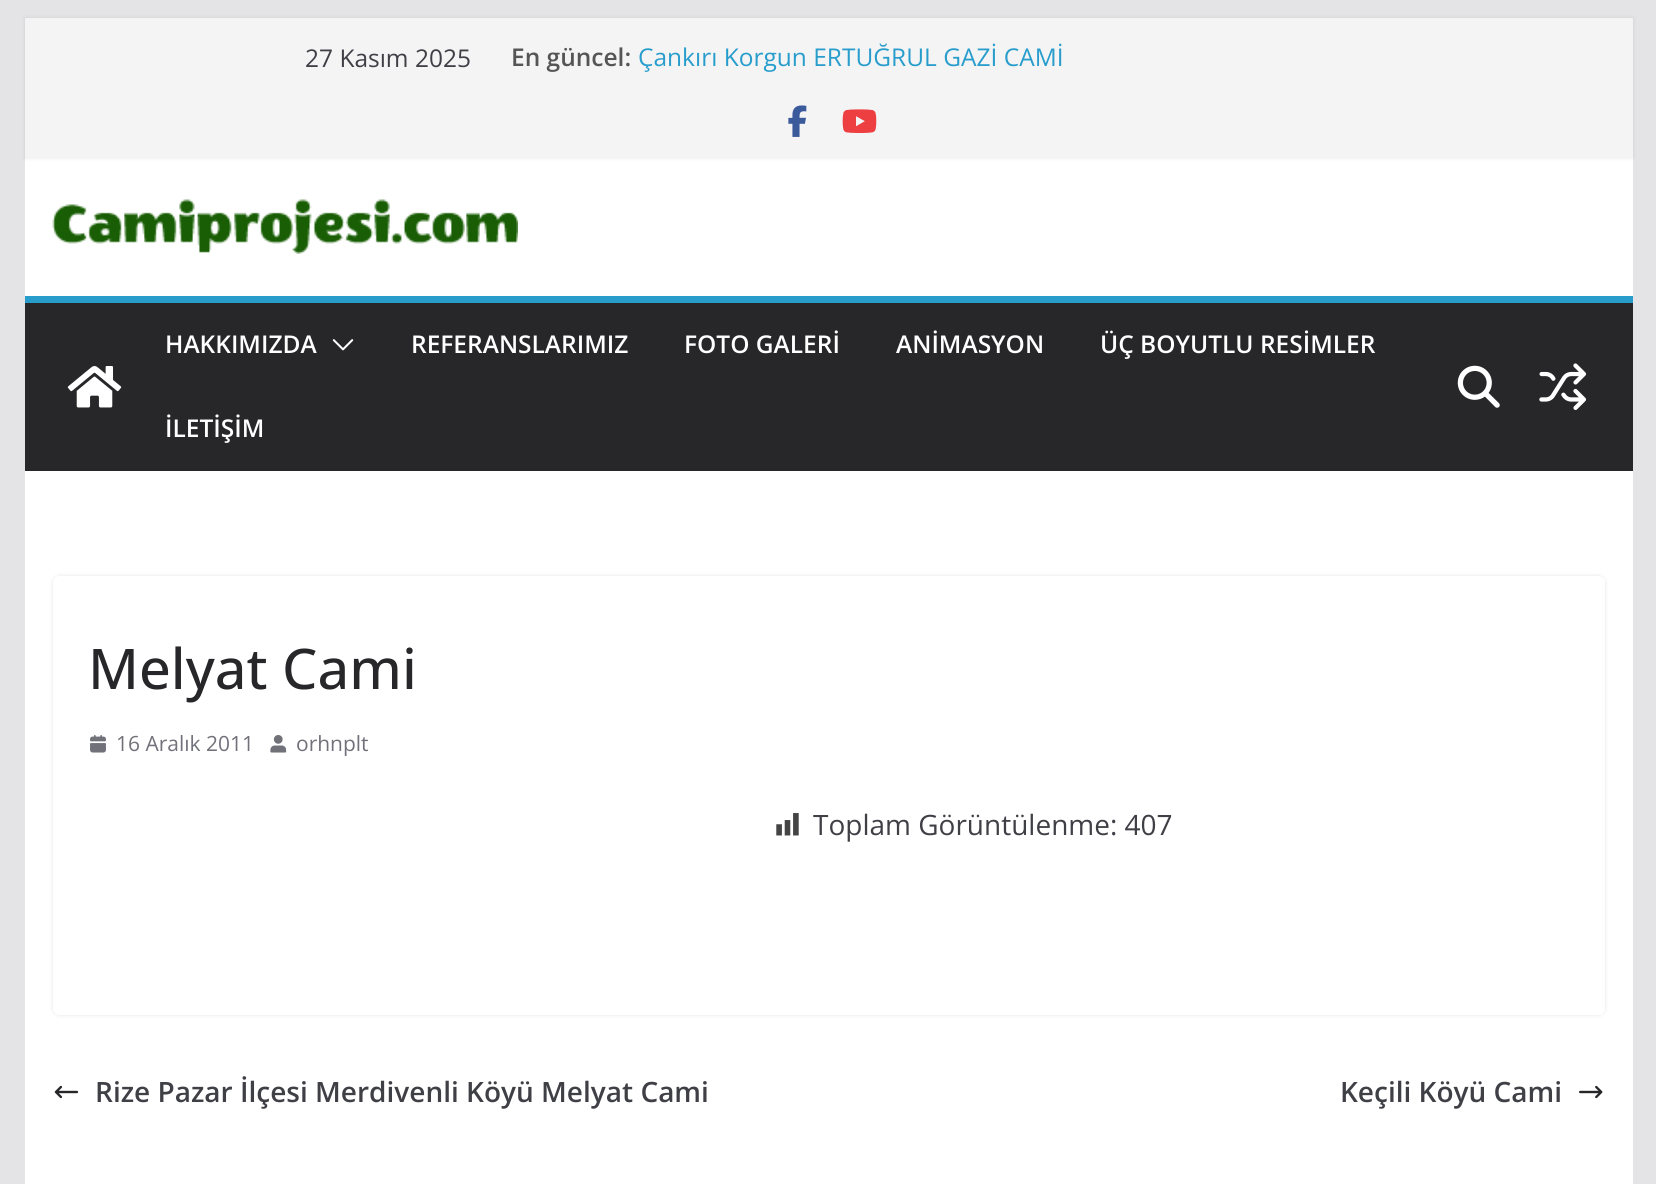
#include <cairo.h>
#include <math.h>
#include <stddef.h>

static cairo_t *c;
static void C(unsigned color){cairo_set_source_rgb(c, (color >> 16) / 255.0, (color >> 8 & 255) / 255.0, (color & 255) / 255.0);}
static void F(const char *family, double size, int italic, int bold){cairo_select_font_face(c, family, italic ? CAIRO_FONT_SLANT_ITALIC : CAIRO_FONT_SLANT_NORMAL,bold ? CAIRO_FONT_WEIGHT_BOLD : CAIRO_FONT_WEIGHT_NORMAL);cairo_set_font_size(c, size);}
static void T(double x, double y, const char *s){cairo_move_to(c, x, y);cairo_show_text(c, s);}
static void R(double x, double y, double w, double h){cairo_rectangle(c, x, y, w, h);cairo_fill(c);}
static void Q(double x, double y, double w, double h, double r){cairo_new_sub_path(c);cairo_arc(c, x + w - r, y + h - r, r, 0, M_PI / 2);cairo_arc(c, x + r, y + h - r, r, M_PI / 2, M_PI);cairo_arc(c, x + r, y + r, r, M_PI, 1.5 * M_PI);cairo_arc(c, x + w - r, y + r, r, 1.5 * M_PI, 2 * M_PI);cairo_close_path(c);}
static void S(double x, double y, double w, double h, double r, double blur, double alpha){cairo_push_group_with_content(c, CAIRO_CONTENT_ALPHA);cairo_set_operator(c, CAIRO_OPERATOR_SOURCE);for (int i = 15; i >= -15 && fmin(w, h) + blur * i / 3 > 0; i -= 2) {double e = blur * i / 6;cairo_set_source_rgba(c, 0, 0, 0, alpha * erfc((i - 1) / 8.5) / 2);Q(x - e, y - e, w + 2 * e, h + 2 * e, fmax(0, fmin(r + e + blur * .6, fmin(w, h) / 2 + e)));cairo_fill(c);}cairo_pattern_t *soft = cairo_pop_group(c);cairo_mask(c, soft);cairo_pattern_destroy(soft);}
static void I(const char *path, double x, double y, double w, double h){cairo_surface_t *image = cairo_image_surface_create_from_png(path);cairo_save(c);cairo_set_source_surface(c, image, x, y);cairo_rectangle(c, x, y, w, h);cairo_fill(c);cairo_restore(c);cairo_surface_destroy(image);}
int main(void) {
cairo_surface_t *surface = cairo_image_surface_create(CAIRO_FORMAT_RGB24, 1656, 1184);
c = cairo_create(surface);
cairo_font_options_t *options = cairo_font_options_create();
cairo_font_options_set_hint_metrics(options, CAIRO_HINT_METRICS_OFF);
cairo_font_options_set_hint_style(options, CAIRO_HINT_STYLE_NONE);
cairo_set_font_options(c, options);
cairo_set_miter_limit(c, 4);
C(0xe4e4e7);
cairo_paint(c);
C(0xffffff);
R(25,158,1608,138);
C(0x000000);
S(25,18,1608,140,0,2,.1);
C(0xf4f4f5);
R(25,18,1608,140);
F("Open Sans",24.5,0,0);
C(0x3f3f46);
T(305,67,"27 Kasım 2025");
F("Open Sans SemiBold",24.5,0,0);
C(0x555555);
T(511,66,"En güncel:");
F("Open Sans",24.5,0,0);
C(0x289dcc);
T(638,66,"Çankırı Korgun ERTUĞRUL GAZİ CAMİ");
I("1.png",788,105,19,32);
I("2.png",842,109,35,24);
I("3.png",52,199,466,55);
C(0x27272a);
R(25,303,1608,168);
C(0x289dcc);
R(25,296,1608,7);
I("4.png",67,366,55,42);
F("Open Sans SemiBold",24.5,0,0);
C(0xffffff);
T(165,353,"HAKKIMIZDA");
I("5.png",332,339,22,12);
T(411,353,"REFERANSLARIMIZ");
T(684,353,"FOTO GALERİ");
T(896,353,"ANİMASYON");
T(1100,353,"ÜÇ BOYUTLU RESİMLER");
T(165,437,"İLETİŞİM");
I("6.png",1457,365,43,43);
I("7.png",1539,363,48,47);
R(25,471,1608,713);
cairo_save(c);
cairo_set_fill_rule(c,CAIRO_FILL_RULE_EVEN_ODD);
cairo_new_path(c);
cairo_move_to(c,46,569);
cairo_line_to(c,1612,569);
cairo_line_to(c,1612,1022);
cairo_line_to(c,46,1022);
cairo_close_path(c);
cairo_move_to(c,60,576);
cairo_line_to(c,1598,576);
cairo_curve_to(c,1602,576,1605,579,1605,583);
cairo_line_to(c,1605,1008);
cairo_curve_to(c,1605,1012,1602,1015,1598,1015);
cairo_line_to(c,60,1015);
cairo_curve_to(c,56,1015,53,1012,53,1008);
cairo_line_to(c,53,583);
cairo_curve_to(c,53,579,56,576,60,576);
cairo_close_path(c);
cairo_clip(c);
C(0xe4e4e7);
S(53,576,1552,439,7,2,1);
cairo_restore(c);
F("Open Sans Medium",56,0,0);
C(0x27272a);
T(88,689,"Melyat Cami");
I("8.png",90,735,16,18);
F("Open Sans",21,0,0);
C(0x71717a);
T(116,751,"16 Aralık 2011");
I("9.png",270,735,17,18);
T(296,751,"orhnplt");
I("10.png",776,813,23,23);
F("Open Sans",28,0,0);
C(0x3f3f46);
T(813,835,"Toplam Görüntülenme: 407");
I("11.png",54,1085,25,14);
F("Open Sans SemiBold",28,0,0);
T(95,1102,"Rize Pazar İlçesi Merdivenli Köyü Melyat Cami");
T(1340,1102,"Keçili Köyü Cami");
I("12.png",1579,1085,24,14);
cairo_surface_write_to_png(surface, "o.png");
cairo_font_options_destroy(options);
cairo_destroy(c);
cairo_surface_destroy(surface);
return 0;
}
